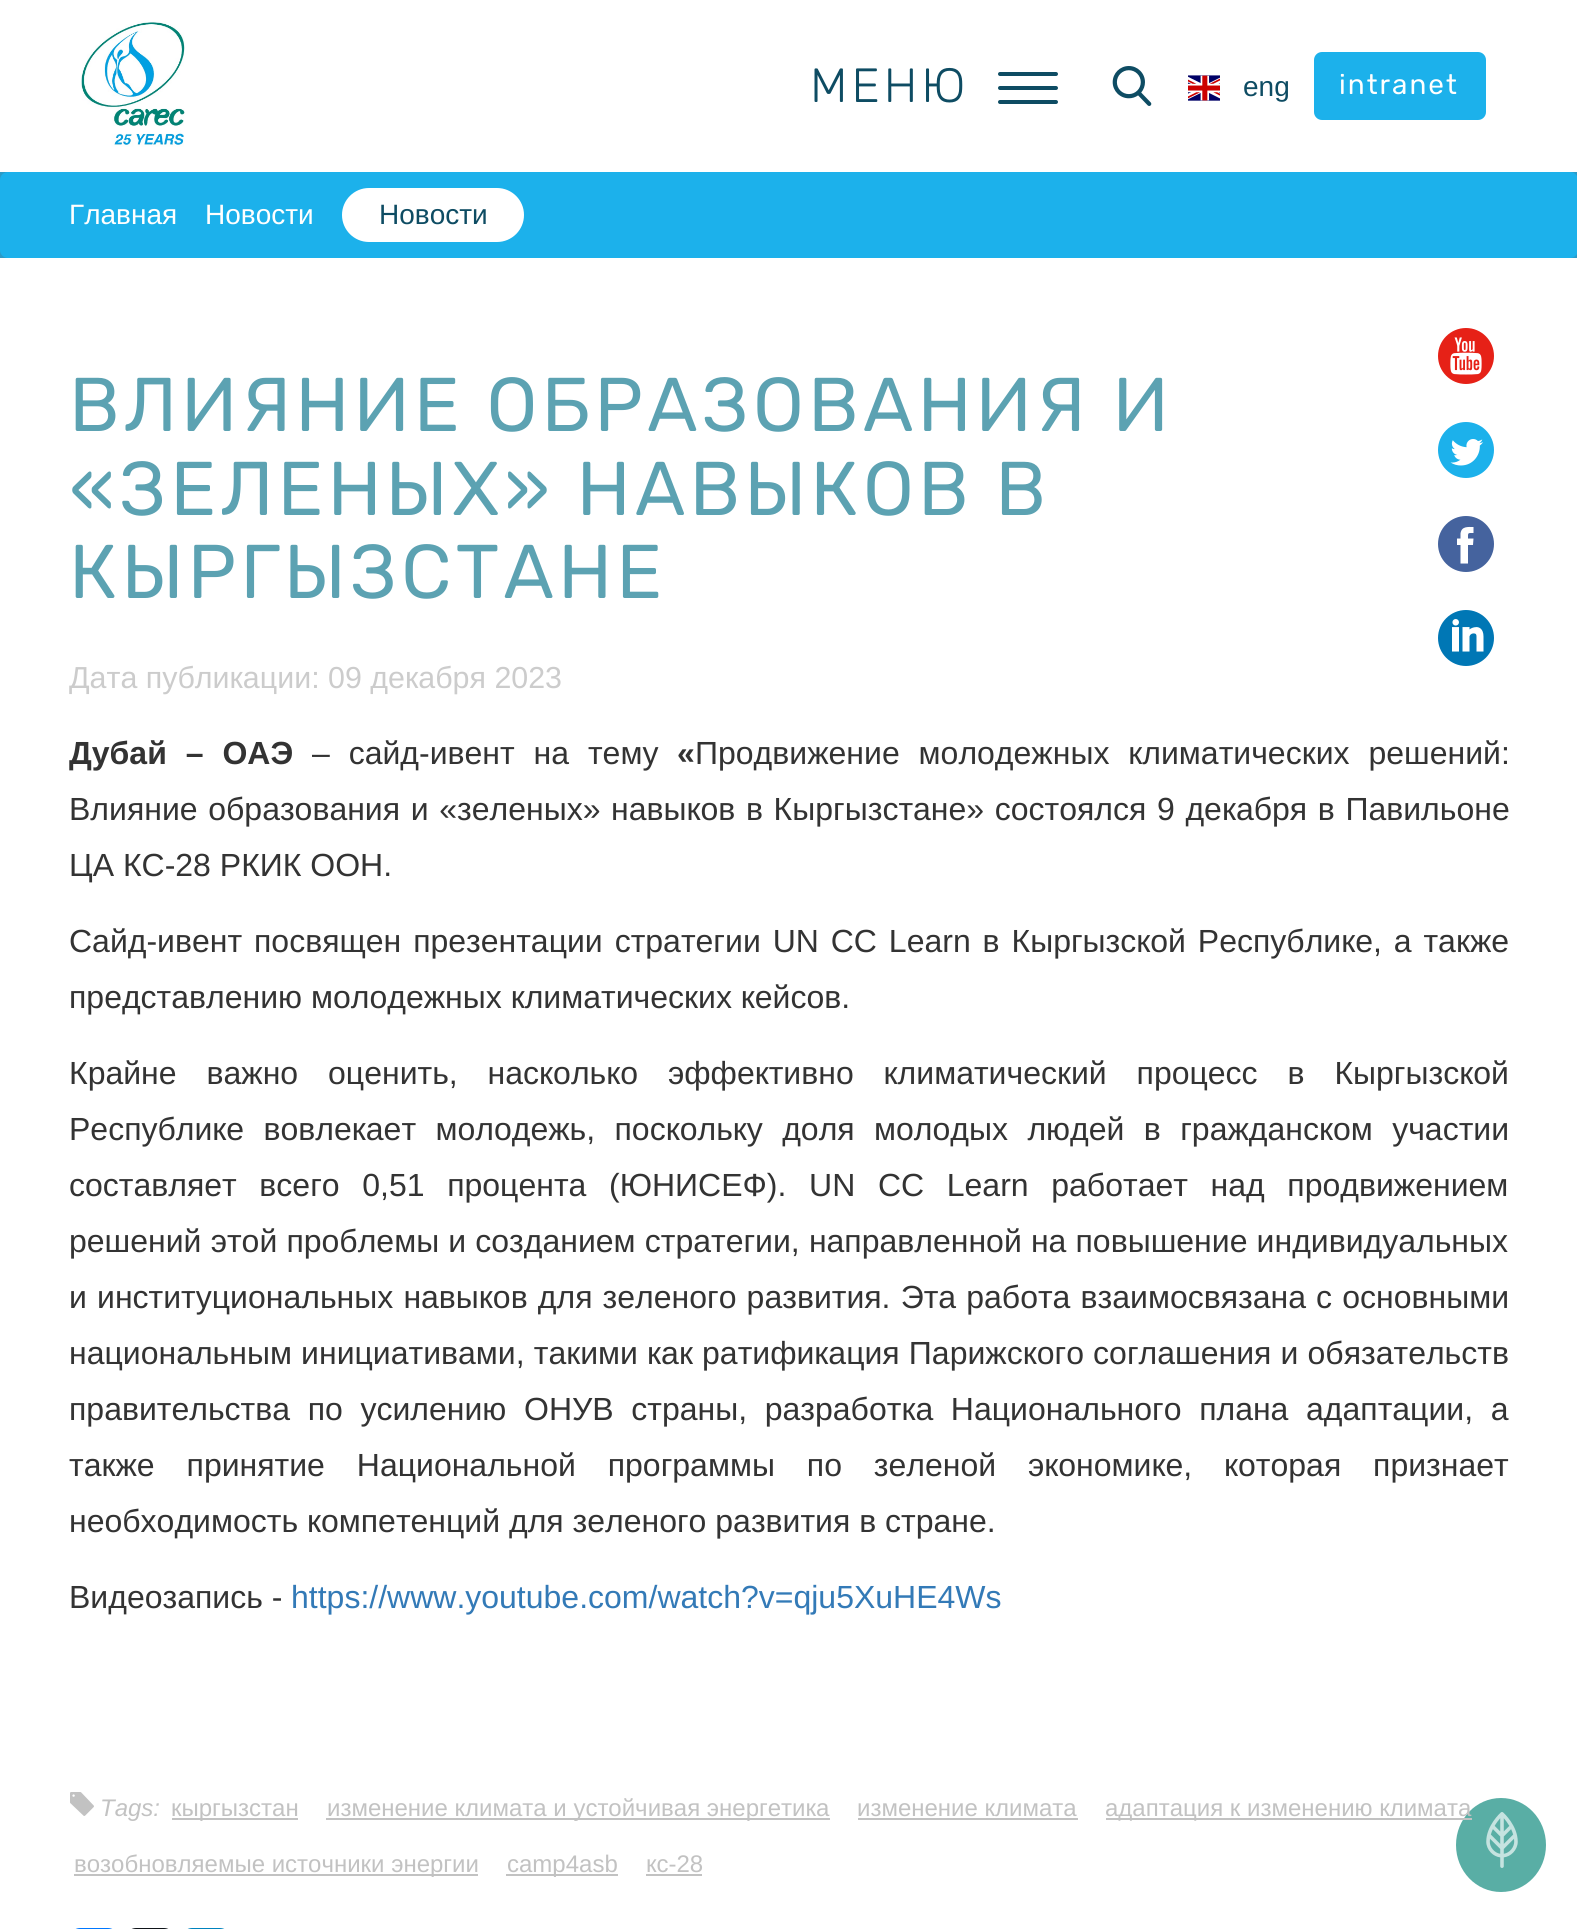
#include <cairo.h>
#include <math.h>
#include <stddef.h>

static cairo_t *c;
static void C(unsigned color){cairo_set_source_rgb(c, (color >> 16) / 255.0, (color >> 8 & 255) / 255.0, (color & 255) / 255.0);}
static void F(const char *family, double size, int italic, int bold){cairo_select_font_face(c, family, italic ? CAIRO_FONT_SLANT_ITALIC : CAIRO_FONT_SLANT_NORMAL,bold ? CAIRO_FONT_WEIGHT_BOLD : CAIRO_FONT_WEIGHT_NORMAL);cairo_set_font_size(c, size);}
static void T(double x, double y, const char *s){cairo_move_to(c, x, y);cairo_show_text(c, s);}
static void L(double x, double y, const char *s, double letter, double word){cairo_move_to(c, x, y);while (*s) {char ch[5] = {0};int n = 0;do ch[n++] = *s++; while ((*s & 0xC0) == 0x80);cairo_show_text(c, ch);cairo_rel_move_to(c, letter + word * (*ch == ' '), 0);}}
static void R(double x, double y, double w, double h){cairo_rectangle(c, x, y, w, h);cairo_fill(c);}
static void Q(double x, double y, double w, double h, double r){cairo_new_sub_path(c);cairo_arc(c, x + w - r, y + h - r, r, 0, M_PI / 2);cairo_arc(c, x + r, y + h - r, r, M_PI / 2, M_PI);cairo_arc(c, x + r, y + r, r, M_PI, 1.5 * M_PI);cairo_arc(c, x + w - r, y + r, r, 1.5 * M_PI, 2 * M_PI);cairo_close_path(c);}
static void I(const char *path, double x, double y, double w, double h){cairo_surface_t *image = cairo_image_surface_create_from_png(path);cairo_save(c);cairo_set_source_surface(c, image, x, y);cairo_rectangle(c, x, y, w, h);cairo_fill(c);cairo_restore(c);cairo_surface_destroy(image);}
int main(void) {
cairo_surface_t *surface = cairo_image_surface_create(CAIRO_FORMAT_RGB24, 1577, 1929);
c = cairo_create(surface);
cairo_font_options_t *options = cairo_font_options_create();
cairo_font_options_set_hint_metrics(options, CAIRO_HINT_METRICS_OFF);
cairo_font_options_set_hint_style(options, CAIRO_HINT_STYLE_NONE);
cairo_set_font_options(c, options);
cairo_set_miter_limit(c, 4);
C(0xffffff);
cairo_paint(c);
C(0x2b9bc8);
R(0,172,1577,86);
I("1.png",81,21,104,126);
F("Rubik Light",48,0,0);
C(0x0e4c63);
L(810,102,"МЕНЮ",4,0);
Q(998,72,60,4,2);
cairo_fill(c);
Q(998,86,60,4,2);
cairo_fill(c);
Q(998,100,60,4,2);
cairo_fill(c);
I("2.png",1112,66,40,40);
I("3.png",1188,75,32,26);
F("Liberation Sans",28,0,0);
T(1243,96,"eng");
C(0x1cb1eb);
Q(1314,52,172,68,8);
cairo_fill(c);
F("Rubik",28,0,0);
C(0xffffff);
L(1339,94,"intranet",2,0);
C(0x1cb1eb);
Q(0,172,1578,86,8);
cairo_fill(c);
F("Liberation Sans",28,0,0);
C(0xffffff);
T(69,224,"Главная");
T(205,224,"Новости");
Q(342,188,182,54,27);
cairo_fill(c);
C(0x0e4c63);
T(379,224,"Новости");
I("4.png",1438,328,56,56);
I("5.png",1438,422,56,56);
C(0x45639e);
cairo_arc(c,1466,544,28,0,2 * M_PI);
cairo_fill(c);
C(0xffffff);
cairo_new_path(c);
cairo_move_to(c,1473,545);
cairo_line_to(c,1468,545);
cairo_line_to(c,1468,563.5);
cairo_line_to(c,1460.5,563.5);
cairo_line_to(c,1460.5,545);
cairo_line_to(c,1457,545);
cairo_line_to(c,1457,538.5);
cairo_line_to(c,1460.5,538.5);
cairo_line_to(c,1460.5,533.5);
cairo_curve_to(c,1461.5,526,1468,527,1473.5,527);
cairo_line_to(c,1473.5,533);
cairo_curve_to(c,1467.5,533,1468,532.5,1468,538.5);
cairo_line_to(c,1473.5,538.5);
cairo_close_path(c);
cairo_fill(c);
I("6.png",1438,610,56,56);
F("Rubik",76,0,0);
C(0x5ca2b2);
L(69,431,"ВЛИЯНИЕ ОБРАЗОВАНИЯ И",4,0);
L(69,515,"«ЗЕЛЕНЫХ» НАВЫКОВ В",4,0);
L(69,598,"КЫРГЫЗСТАНЕ",4,0);
F("Liberation Sans",30.4,0,0);
C(0xcccccc);
T(69,688,"Дата публикации: 09 декабря 2023");
F("Liberation Sans",32,0,1);
C(0x333333);
L(69,764,"Дубай – ОАЭ",0,10);
F("Liberation Sans",32,0,0);
L(312,764,"– сайд-ивент на тему",0,10);
F("Liberation Sans",32,0,1);
T(677,764,"«");
F("Liberation Sans",32,0,0);
L(695,764,"Продвижение молодежных климатических решений:",0,10);
L(69,820,"Влияние образования и «зеленых» навыков в Кыргызстане» состоялся 9 декабря в Павильоне",0,1.75);
T(69,876,"ЦА КС-28 РКИК ООН.");
L(69,952,"Сайд-ивент посвящен презентации стратегии UN CC Learn в Кыргызской Республике, а также",0,3);
T(69,1008,"представлению молодежных климатических кейсов.");
L(69,1084,"Крайне важно оценить, насколько эффективно климатический процесс в Кыргызской",0,21);
L(69,1140,"Республике вовлекает молодежь, поскольку доля молодых людей в гражданском участии",0,10.5);
L(69,1196,"составляет всего 0,51 процента (ЮНИСЕФ). UN CC Learn работает над продвижением",0,13.75);
L(69,1252,"решений этой проблемы и созданием стратегии, направленной на повышение индивидуальных",0,.25);
L(69,1308,"и институциональных навыков для зеленого развития. Эта работа взаимосвязана с основными",0,1.25);
L(69,1364,"национальным инициативами, такими как ратификация Парижского соглашения и обязательств",0,.25);
L(69,1420,"правительства по усилению ОНУВ страны, разработка Национального плана адаптации, а",0,8.75);
L(69,1476,"также принятие Национальной программы по зеленой экономике, которая признает",0,23);
T(69,1532,"необходимость компетенций для зеленого развития в стране.");
T(69,1608,"Видеозапись -");
C(0x337ab7);
T(291,1608,"https://www.youtube.com/watch?v=qju5XuHE4Ws");
I("7.png",70,1792,24,24);
F("Liberation Sans",24,1,0);
C(0xc2c2c2);
T(100,1816,"Tags:");
R(172,1818,126,2);
F("Liberation Sans",24,0,0);
T(171,1816,"кыргызстан");
R(326,1818,504,2);
T(327,1816,"изменение климата и устойчивая энергетика");
T(857,1816,"изменение климата");
R(858,1818,220,2);
C(0x59aea5);
cairo_new_path(c);
cairo_move_to(c,1501,1798);
cairo_curve_to(c,1526,1798,1546,1819,1546,1845);
cairo_curve_to(c,1546,1871,1526,1892,1501,1892);
cairo_curve_to(c,1476,1892,1456,1871,1456,1845);
cairo_curve_to(c,1456,1819,1476,1798,1501,1798);
cairo_close_path(c);
cairo_fill(c);
C(0xc2c2c2);
R(1106,1818,366,2);
T(1105,1816,"адаптация к изменению климата");
R(74,1874,404,2);
T(74,1872,"возобновляемые источники энергии");
R(506,1874,112,2);
T(507,1872,"camp4asb");
T(646,1872,"кс-28");
R(646,1874,56,2);
C(0x0077ff);
Q(70,1928,48,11,10);
cairo_fill(c);
C(0x0f1419);
Q(126,1928,48,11,10);
cairo_fill(c);
C(0x0083be);
Q(182,1928,48,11,10);
cairo_fill(c);
I("8.png",1486,1812,32,56);
cairo_surface_write_to_png(surface, "o.png");
cairo_font_options_destroy(options);
cairo_destroy(c);
cairo_surface_destroy(surface);
return 0;
}
